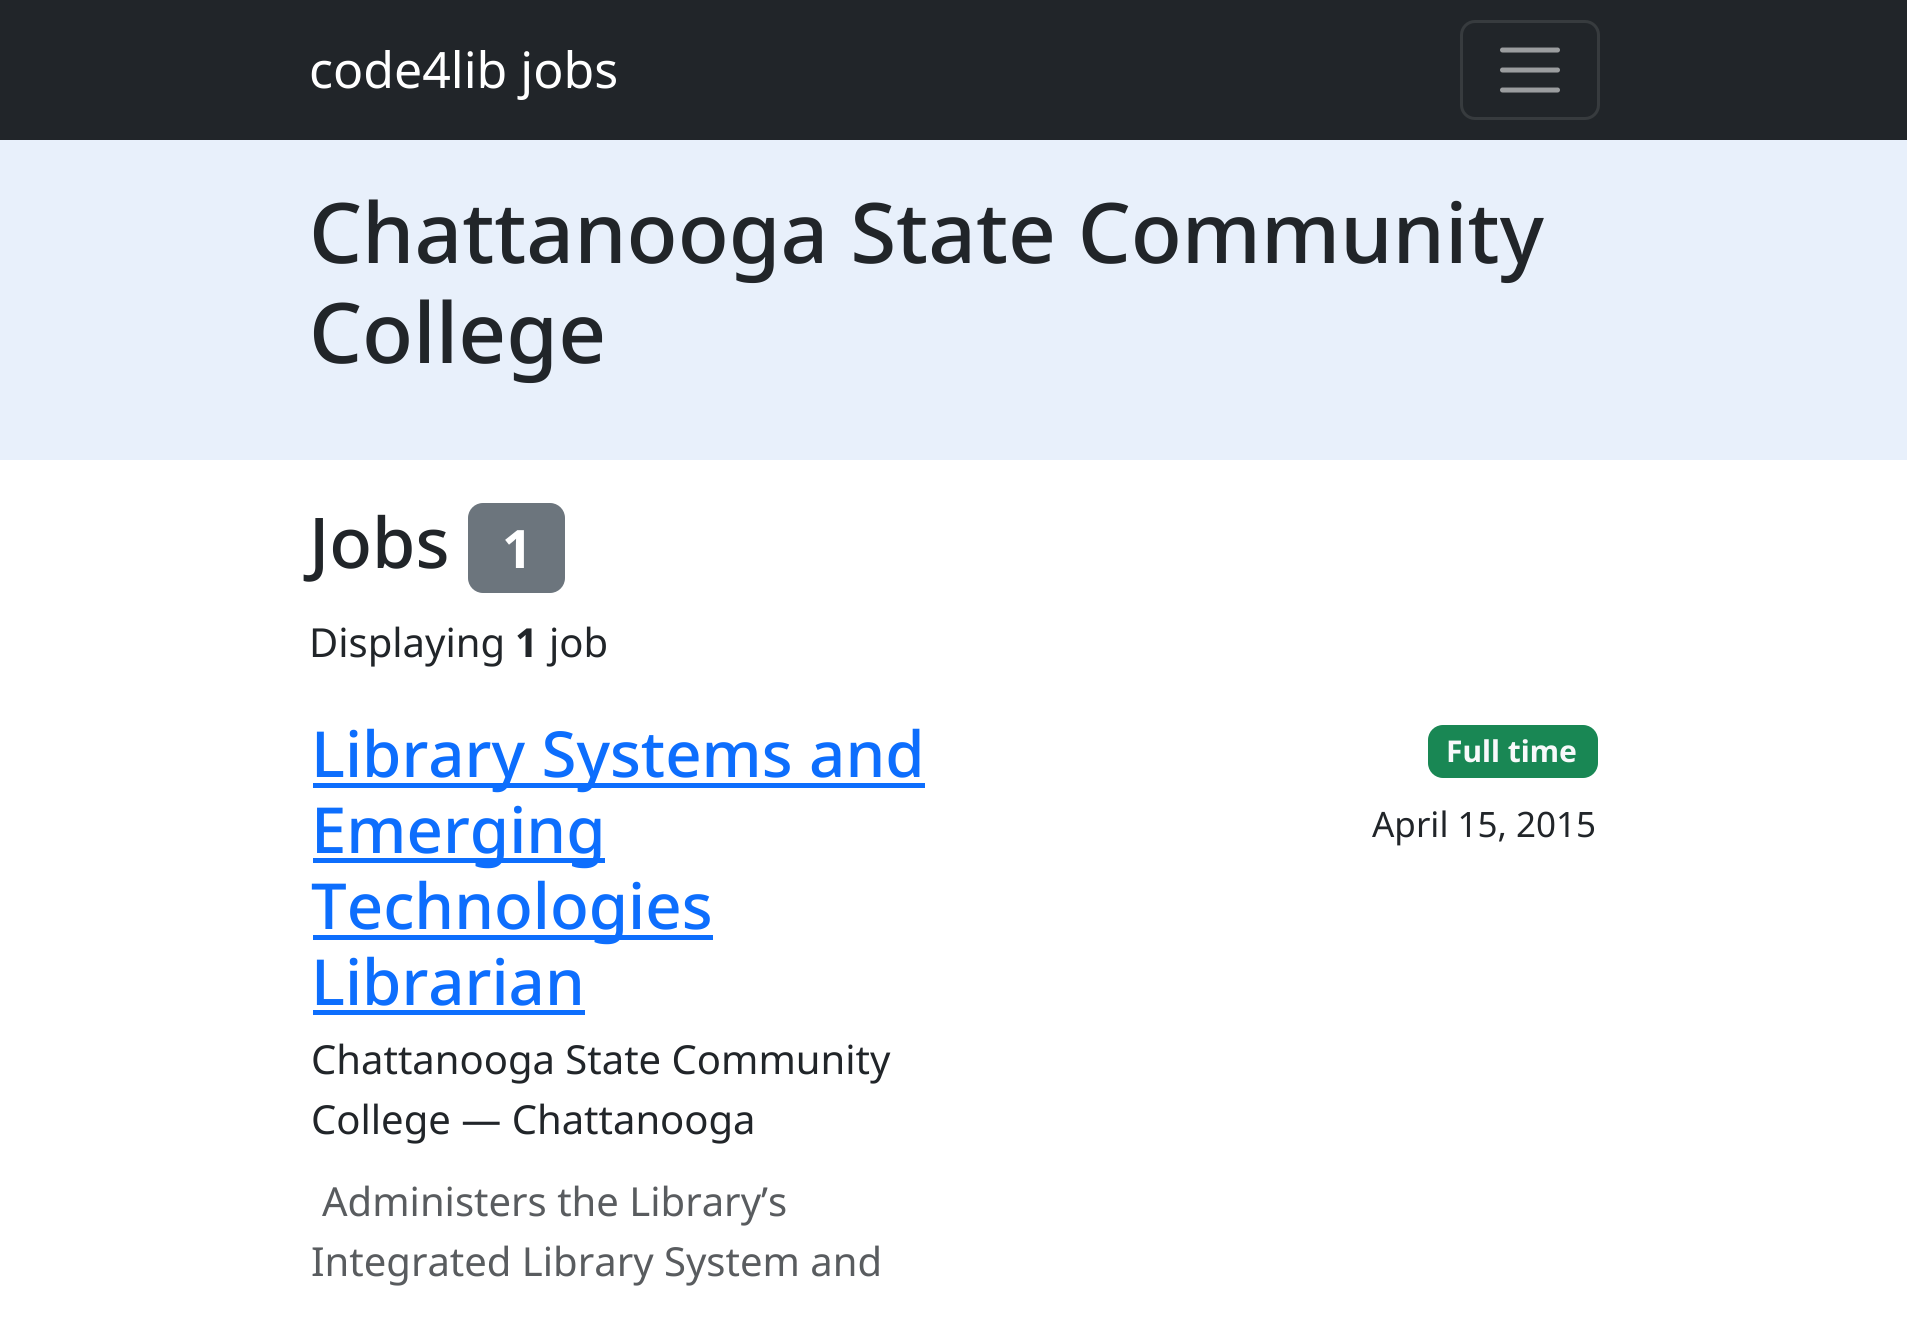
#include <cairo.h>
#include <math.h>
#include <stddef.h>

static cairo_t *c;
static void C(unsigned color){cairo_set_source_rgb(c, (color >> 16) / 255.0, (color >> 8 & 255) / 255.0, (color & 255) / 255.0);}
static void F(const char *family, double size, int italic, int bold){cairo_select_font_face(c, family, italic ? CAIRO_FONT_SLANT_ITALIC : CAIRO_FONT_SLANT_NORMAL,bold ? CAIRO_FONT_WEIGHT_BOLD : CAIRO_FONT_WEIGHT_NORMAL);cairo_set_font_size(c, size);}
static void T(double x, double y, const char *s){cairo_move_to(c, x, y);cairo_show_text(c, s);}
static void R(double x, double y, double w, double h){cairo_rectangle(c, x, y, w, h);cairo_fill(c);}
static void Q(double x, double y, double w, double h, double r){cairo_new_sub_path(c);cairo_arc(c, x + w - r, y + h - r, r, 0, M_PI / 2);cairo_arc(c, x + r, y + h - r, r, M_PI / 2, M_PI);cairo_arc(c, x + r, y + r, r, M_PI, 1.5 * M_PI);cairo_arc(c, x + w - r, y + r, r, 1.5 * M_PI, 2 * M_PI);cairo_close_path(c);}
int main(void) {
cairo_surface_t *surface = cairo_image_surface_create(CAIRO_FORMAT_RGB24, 1907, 1325);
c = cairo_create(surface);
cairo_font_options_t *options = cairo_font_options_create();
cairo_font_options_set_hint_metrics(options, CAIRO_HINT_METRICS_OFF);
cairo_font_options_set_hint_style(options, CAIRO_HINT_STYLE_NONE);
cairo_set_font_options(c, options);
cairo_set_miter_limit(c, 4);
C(0xffffff);
cairo_paint(c);
C(0x212529);
R(0,0,1907,140);
F("Noto Sans",50,0,0);
C(0xffffff);
T(309,88,"code4lib jobs");
Q(1461.5,21.5,137,97,13.5);
C(0x373b3e);
cairo_set_line_width(c,3);
cairo_stroke(c);
cairo_new_path(c);
cairo_move_to(c,1502.5,50);
cairo_line_to(c,1557.5,50);
cairo_move_to(c,1502.5,70);
cairo_line_to(c,1557.5,70);
cairo_move_to(c,1502.5,90);
cairo_line_to(c,1557.5,90);
C(0x9b9d9f);
cairo_set_line_width(c,5);
cairo_set_line_cap(c,CAIRO_LINE_CAP_ROUND);
cairo_stroke(c);
C(0xe8f0fb);
R(0,140,1907,320);
F("Noto Sans Medium",83.6,0,0);
C(0x212529);
T(309,263,"Chattanooga State Community");
T(309,363,"College");
F("Noto Sans Medium",70,0,0);
T(309,568,"Jobs");
C(0x6c757d);
Q(468,503,97,90,15);
cairo_fill(c);
F("Noto Sans",53,0,1);
C(0xffffff);
T(502,568,"1");
F("Noto Sans",40,0,0);
C(0x212529);
T(309,657,"Displaying");
F("Noto Sans",40,0,1);
T(515,657,"1");
F("Noto Sans",40,0,0);
T(549,657,"job");
C(0x0d6efd);
R(313,783,612,5);
F("Noto Sans Medium",63.5,0,0);
T(311,777,"Library Systems and");
R(313,858,292,5);
T(311,853,"Emerging");
R(313,935,400,5);
T(311,929,"Technologies");
T(311,1005,"Librarian");
R(313,1010,272,5);
F("Noto Sans",40,0,0);
C(0x212529);
T(311,1074,"Chattanooga State Community");
T(311,1134,"College — Chattanooga");
C(0x198754);
Q(1428,725,170,53,15);
cairo_fill(c);
F("Noto Sans",30,0,1);
C(0xf8f9fa);
T(1446,762,"Full time");
F("Noto Sans",35,0,0);
C(0x212529);
T(1372,837,"April 15, 2015");
F("Noto Sans",40,0,0);
C(0x595c5f);
T(322,1216,"Administers the Library’s");
T(311,1276,"Integrated Library System and");
cairo_surface_write_to_png(surface, "o.png");
cairo_font_options_destroy(options);
cairo_destroy(c);
cairo_surface_destroy(surface);
return 0;
}
